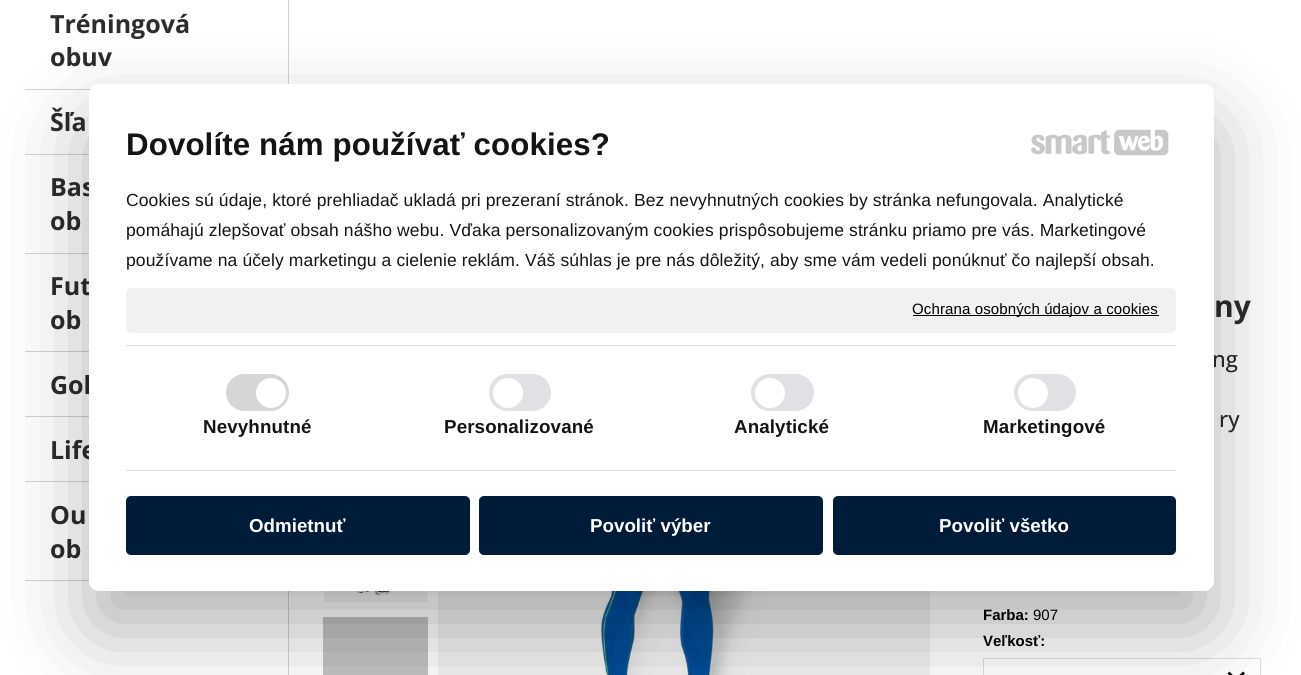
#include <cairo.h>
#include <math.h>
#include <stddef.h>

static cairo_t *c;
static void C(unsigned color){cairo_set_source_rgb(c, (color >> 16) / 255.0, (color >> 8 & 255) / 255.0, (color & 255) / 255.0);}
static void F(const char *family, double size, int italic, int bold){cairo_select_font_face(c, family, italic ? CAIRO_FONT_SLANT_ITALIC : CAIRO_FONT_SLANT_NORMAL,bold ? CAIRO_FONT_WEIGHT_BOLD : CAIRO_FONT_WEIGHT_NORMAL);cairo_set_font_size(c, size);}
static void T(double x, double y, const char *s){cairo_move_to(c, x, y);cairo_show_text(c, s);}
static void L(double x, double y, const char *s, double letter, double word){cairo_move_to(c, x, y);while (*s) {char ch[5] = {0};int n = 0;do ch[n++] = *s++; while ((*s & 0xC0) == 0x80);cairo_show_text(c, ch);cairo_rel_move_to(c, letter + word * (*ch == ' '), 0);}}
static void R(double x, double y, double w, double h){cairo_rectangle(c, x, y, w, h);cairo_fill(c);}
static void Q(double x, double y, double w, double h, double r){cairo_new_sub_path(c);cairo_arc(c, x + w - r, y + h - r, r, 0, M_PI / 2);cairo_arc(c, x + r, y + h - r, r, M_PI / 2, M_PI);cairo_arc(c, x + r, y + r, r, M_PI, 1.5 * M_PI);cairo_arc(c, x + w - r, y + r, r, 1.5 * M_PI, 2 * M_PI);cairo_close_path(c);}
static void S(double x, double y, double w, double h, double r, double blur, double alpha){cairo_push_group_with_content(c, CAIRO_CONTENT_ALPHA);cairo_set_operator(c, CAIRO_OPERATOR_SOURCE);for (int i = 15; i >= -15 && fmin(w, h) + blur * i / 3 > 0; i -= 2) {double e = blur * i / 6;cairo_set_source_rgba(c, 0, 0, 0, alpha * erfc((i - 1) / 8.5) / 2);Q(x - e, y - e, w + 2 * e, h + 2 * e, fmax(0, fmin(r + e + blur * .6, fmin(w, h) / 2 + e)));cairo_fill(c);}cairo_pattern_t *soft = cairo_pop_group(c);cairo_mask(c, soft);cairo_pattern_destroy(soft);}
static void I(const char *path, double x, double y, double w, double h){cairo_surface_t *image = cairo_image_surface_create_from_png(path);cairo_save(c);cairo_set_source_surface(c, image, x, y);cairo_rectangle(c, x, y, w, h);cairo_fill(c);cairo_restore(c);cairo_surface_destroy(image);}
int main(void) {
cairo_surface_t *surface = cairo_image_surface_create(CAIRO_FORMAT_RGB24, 1301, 675);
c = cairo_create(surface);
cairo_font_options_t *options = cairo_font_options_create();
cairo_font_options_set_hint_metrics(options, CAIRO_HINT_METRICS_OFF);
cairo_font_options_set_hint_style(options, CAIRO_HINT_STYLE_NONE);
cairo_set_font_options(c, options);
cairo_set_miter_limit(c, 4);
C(0xffffff);
cairo_paint(c);
C(0xd2d2d2);
R(25,89,66,1);
F("Open Sans",25,0,1);
C(0x2d2c2c);
T(50,33,"Tréningová");
T(50,66,"obuv");
C(0xd2d2d2);
R(25,154,64,1);
C(0x2d2c2c);
T(50,131,"Šľa");
C(0xd2d2d2);
R(25,253,64,1);
C(0x2d2c2c);
T(50,196,"Bas");
T(50,230,"ob");
C(0xd2d2d2);
R(25,351,64,1);
C(0x2d2c2c);
T(50,295,"Fut");
T(50,329,"ob");
C(0xd2d2d2);
R(25,416,64,1);
C(0x2d2c2c);
T(50,394,"Gol");
C(0xd2d2d2);
R(25,481,64,1);
C(0x2d2c2c);
T(50,459,"Life");
C(0xd2d2d2);
R(25,580,64,1);
C(0x2d2c2c);
T(50,524,"Ou");
T(50,558,"ob");
C(0xd2d2d2);
R(288,0,1,675);
I("1.png",324,591,104,12);
C(0xc3c3c3);
R(323,617,105,58);
I("2.png",438,591,492,84);
F("Open Sans",30,0,1);
C(0x2d2c2c);
T(1214,317,"ny");
F("Open Sans Medium",22,0,0);
T(1212,367,"ng");
T(1219,427,"ry");
F("Liberation Sans",15,0,1);
C(0x000000);
T(983,620,"Farba:");
F("Liberation Sans",15,0,0);
T(1033,620,"907");
F("Liberation Sans",15,0,1);
T(983,646,"Veľkosť:");
cairo_rectangle(c,983.5,658.5,277,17);
C(0xdddddd);
cairo_set_line_width(c,1);
cairo_stroke(c);
C(0x000000);
cairo_new_path(c);
cairo_move_to(c,1229.5,671.5);
cairo_line_to(c,1236,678.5);
cairo_line_to(c,1243,671.5);
cairo_line_to(c,1245,673.5);
cairo_line_to(c,1236,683);
cairo_line_to(c,1227.5,673.5);
cairo_close_path(c);
cairo_fill(c);
C(0x000000);
S(89,124,1125,507,10,42.5,.3);
C(0xffffff);
Q(89,84,1125,507,10);
cairo_fill(c);
F("Liberation Sans",31.25,0,1);
C(0x141414);
L(126,155,"Dovolíte nám používať cookies?",.12,0);
I("3.png",1031,130,80,25);
I("4.png",1114,129,55,27);
F("Liberation Sans",17.5,0,0);
L(126,206,"Cookies sú údaje, ktoré prehliadač ukladá pri prezeraní stránok. Bez nevyhnutných cookies by stránka nefungovala. Analytické",.12,0);
L(126,236,"pomáhajú zlepšovať obsah nášho webu. Vďaka personalizovaným cookies prispôsobujeme stránku priamo pre vás. Marketingové",.12,0);
L(126,266,"používame na účely marketingu a cielenie reklám. Váš súhlas je pre nás dôležitý, aby sme vám vedeli ponúknuť čo najlepší obsah.",.12,0);
C(0xf1f1f1);
Q(126,288,1050,45,6);
cairo_fill(c);
C(0x000000);
R(913,315,246,1);
F("Liberation Sans",15,0,0);
L(912,314,"Ochrana osobných údajov a cookies",.12,0);
C(0xdddddd);
R(126,345,1050,1);
R(126,470,1050,1);
C(0xd6d6d6);
Q(226,374,63,37,18.5);
cairo_fill(c);
C(0xffffff);
cairo_arc(c,271,393,15,0,2 * M_PI);
cairo_fill(c);
F("Liberation Sans",18.75,0,1);
C(0x141414);
L(203,433,"Nevyhnutné",.12,0);
C(0xdfe1e4);
Q(489,374,62,37,18.5);
cairo_fill(c);
C(0xffffff);
cairo_arc(c,508,393,15,0,2 * M_PI);
cairo_fill(c);
C(0x141414);
L(444,433,"Personalizované",.12,0);
C(0xdfe1e4);
Q(751,374,63,37,18.5);
cairo_fill(c);
C(0xffffff);
cairo_arc(c,770,393,15,0,2 * M_PI);
cairo_fill(c);
C(0x141414);
L(734,433,"Analytické",.12,0);
C(0xdfe1e4);
Q(1014,374,62,37,18.5);
cairo_fill(c);
C(0xffffff);
cairo_arc(c,1033,393,15,0,2 * M_PI);
cairo_fill(c);
C(0x141414);
L(983,433,"Marketingové",.12,0);
C(0x011c38);
Q(126,496,344,59,5);
cairo_fill(c);
C(0xffffff);
T(249,532,"Odmietnuť");
C(0x011c38);
Q(479,496,344,59,5);
cairo_fill(c);
C(0xffffff);
T(590,532,"Povoliť výber");
C(0x011c38);
Q(833,496,343,59,5);
cairo_fill(c);
C(0xffffff);
T(939,532,"Povoliť všetko");
cairo_surface_write_to_png(surface, "o.png");
cairo_font_options_destroy(options);
cairo_destroy(c);
cairo_surface_destroy(surface);
return 0;
}
